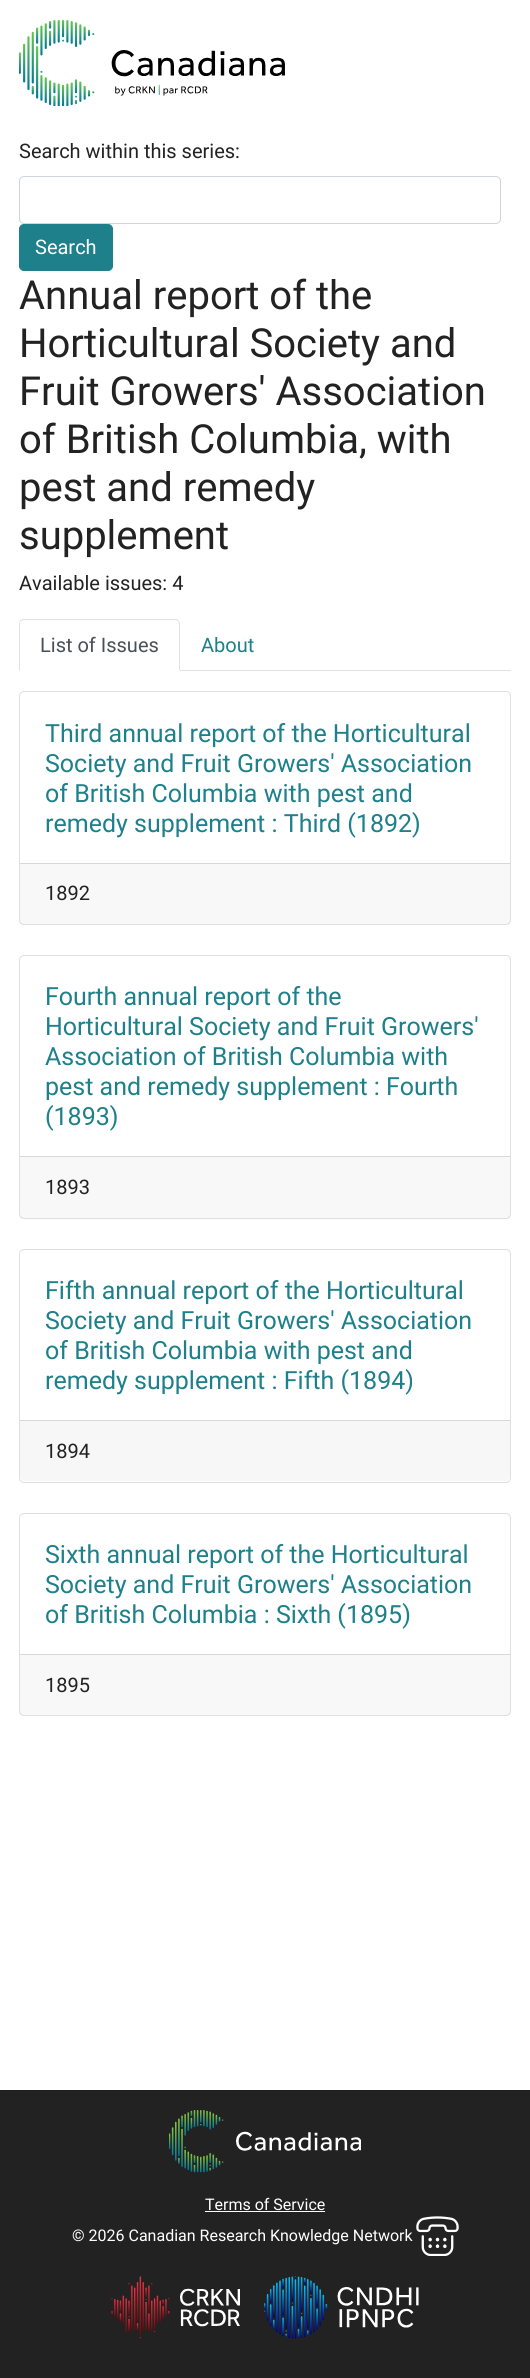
#include <cairo.h>
#include <math.h>
#include <stddef.h>

static cairo_t *c;
static void C(unsigned color){cairo_set_source_rgb(c, (color >> 16) / 255.0, (color >> 8 & 255) / 255.0, (color & 255) / 255.0);}
static void F(const char *family, double size, int italic, int bold){cairo_select_font_face(c, family, italic ? CAIRO_FONT_SLANT_ITALIC : CAIRO_FONT_SLANT_NORMAL,bold ? CAIRO_FONT_WEIGHT_BOLD : CAIRO_FONT_WEIGHT_NORMAL);cairo_set_font_size(c, size);}
static void T(double x, double y, const char *s){cairo_move_to(c, x, y);cairo_show_text(c, s);}
static void R(double x, double y, double w, double h){cairo_rectangle(c, x, y, w, h);cairo_fill(c);}
static void Q(double x, double y, double w, double h, double r){cairo_new_sub_path(c);cairo_arc(c, x + w - r, y + h - r, r, 0, M_PI / 2);cairo_arc(c, x + r, y + h - r, r, M_PI / 2, M_PI);cairo_arc(c, x + r, y + r, r, M_PI, 1.5 * M_PI);cairo_arc(c, x + w - r, y + r, r, 1.5 * M_PI, 2 * M_PI);cairo_close_path(c);}
static void I(const char *path, double x, double y, double w, double h){cairo_surface_t *image = cairo_image_surface_create_from_png(path);cairo_save(c);cairo_set_source_surface(c, image, x, y);cairo_rectangle(c, x, y, w, h);cairo_fill(c);cairo_restore(c);cairo_surface_destroy(image);}
int main(void) {
cairo_surface_t *surface = cairo_image_surface_create(CAIRO_FORMAT_RGB24, 530, 2378);
c = cairo_create(surface);
cairo_font_options_t *options = cairo_font_options_create();
cairo_font_options_set_hint_metrics(options, CAIRO_HINT_METRICS_OFF);
cairo_font_options_set_hint_style(options, CAIRO_HINT_STYLE_NONE);
cairo_set_font_options(c, options);
cairo_set_miter_limit(c, 4);
C(0xffffff);
cairo_paint(c);
I("1.png",19,20,266,86);
F("Roboto",20,0,0);
C(0x222222);
T(19,158,"Search within this series:");
Q(19.5,176.5,481,47,4.5);
C(0xced4da);
cairo_set_line_width(c,1);
cairo_stroke(c);
C(0x1d808b);
Q(19.5,224.5,93,46,4.5);
cairo_fill_preserve(c);
cairo_stroke(c);
C(0xffffff);
T(35,254,"Search");
F("Roboto",40,0,0);
C(0x222222);
T(19,309,"Annual report of the");
T(19,357,"Horticultural Society and");
T(19,405,"Fruit Growers' Association");
T(19,453,"of British Columbia, with");
T(19,501,"pest and remedy");
T(19,549,"supplement");
F("Roboto",20,0,0);
T(19,590,"Available issues: 4");
C(0xdee2e6);
R(180,670,331,1);
cairo_new_path(c);
cairo_move_to(c,24,619);
cairo_curve_to(c,22,619,21,620,20,620);
cairo_line_to(c,21,621);
cairo_line_to(c,24,620);
cairo_line_to(c,175,620);
cairo_line_to(c,178,621);
cairo_line_to(c,178,620);
cairo_curve_to(c,178,619,176,619,175,619);
cairo_close_path(c);
cairo_fill(c);
cairo_new_path(c);
cairo_move_to(c,178,620);
cairo_curve_to(c,179,621,180,622,180,624);
cairo_line_to(c,180,671);
cairo_line_to(c,179,670);
cairo_line_to(c,179,623);
cairo_line_to(c,178,621);
cairo_close_path(c);
cairo_fill(c);
C(0xffffff);
cairo_new_path(c);
cairo_move_to(c,180,671);
cairo_line_to(c,19,671);
cairo_line_to(c,20,670);
cairo_line_to(c,179,670);
cairo_close_path(c);
cairo_fill(c);
C(0xdee2e6);
cairo_new_path(c);
cairo_move_to(c,20,620);
cairo_curve_to(c,20,621,19,622,19,624);
cairo_line_to(c,19,671);
cairo_line_to(c,20,670);
cairo_line_to(c,20,624);
cairo_curve_to(c,20,623,20,622,21,621);
cairo_close_path(c);
cairo_fill(c);
C(0x495057);
T(40,652,"List of Issues");
C(0x1d808b);
T(201,652,"About");
Q(19.5,691.5,491,233,4.5);
C(0xdfdfdf);
cairo_stroke(c);
F("Roboto",25,0,0);
C(0x1d808b);
T(45,742,"Third annual report of the Horticultural");
T(45,772,"Society and Fruit Growers' Association");
T(45,802,"of British Columbia with pest and");
T(45,832,"remedy supplement : Third (1892)");
cairo_set_source_rgba(c,0,0,0,0.03);
R(20,864,490,60);
C(0xd8d8d8);
R(20,863,490,1);
F("Roboto",20,0,0);
C(0x222222);
T(45,900,"1892");
Q(19.5,955.5,491,263,4.5);
C(0xdfdfdf);
cairo_stroke(c);
F("Roboto",25,0,0);
C(0x1d808b);
T(45,1005,"Fourth annual report of the");
T(45,1035,"Horticultural Society and Fruit Growers'");
T(45,1065,"Association of British Columbia with");
T(45,1095,"pest and remedy supplement : Fourth");
T(45,1125,"(1893)");
cairo_set_source_rgba(c,0,0,0,0.03);
R(20,1157,490,61);
C(0xd8d8d8);
R(20,1156,490,1);
F("Roboto",20,0,0);
C(0x222222);
T(45,1194,"1893");
Q(19.5,1249.5,491,233,4.5);
C(0xdfdfdf);
cairo_stroke(c);
F("Roboto",25,0,0);
C(0x1d808b);
T(45,1299,"Fifth annual report of the Horticultural");
T(45,1329,"Society and Fruit Growers' Association");
T(45,1359,"of British Columbia with pest and");
T(45,1389,"remedy supplement : Fifth (1894)");
C(0xf7f7f7);
cairo_new_path(c);
cairo_move_to(c,20,1420);
cairo_line_to(c,510,1420);
cairo_line_to(c,510,1477);
cairo_curve_to(c,510,1479,508,1481,506,1481);
cairo_line_to(c,24,1481);
cairo_curve_to(c,22,1481,20,1479,20,1477);
cairo_close_path(c);
cairo_fill(c);
C(0xd8d8d8);
R(20,1420,490,1);
F("Roboto",20,0,0);
C(0x222222);
T(45,1458,"1894");
Q(19.5,1513.5,491,202,4.5);
C(0xdfdfdf);
cairo_stroke(c);
F("Roboto",25,0,0);
C(0x1d808b);
T(45,1563,"Sixth annual report of the Horticultural");
T(45,1593,"Society and Fruit Growers' Association");
T(45,1623,"of British Columbia : Sixth (1895)");
cairo_set_source_rgba(c,0,0,0,0.03);
R(20,1655,490,60);
C(0xd8d8d8);
R(20,1654,490,1);
F("Roboto",20,0,0);
C(0x222222);
T(45,1692,"1895");
R(0,2090,530,288);
I("2.png",169,2110,192,63);
F("Roboto",16,0,0);
C(0xffffff);
T(205,2210,"Terms of Service");
R(205,2211,120,1);
T(72,2241,"© 2026 Canadian Research Knowledge Network");
I("3.png",416,2216,43,40);
I("4.png",111,2276,129,63);
I("5.png",264,2276,155,63);
cairo_surface_write_to_png(surface, "o.png");
cairo_font_options_destroy(options);
cairo_destroy(c);
cairo_surface_destroy(surface);
return 0;
}
